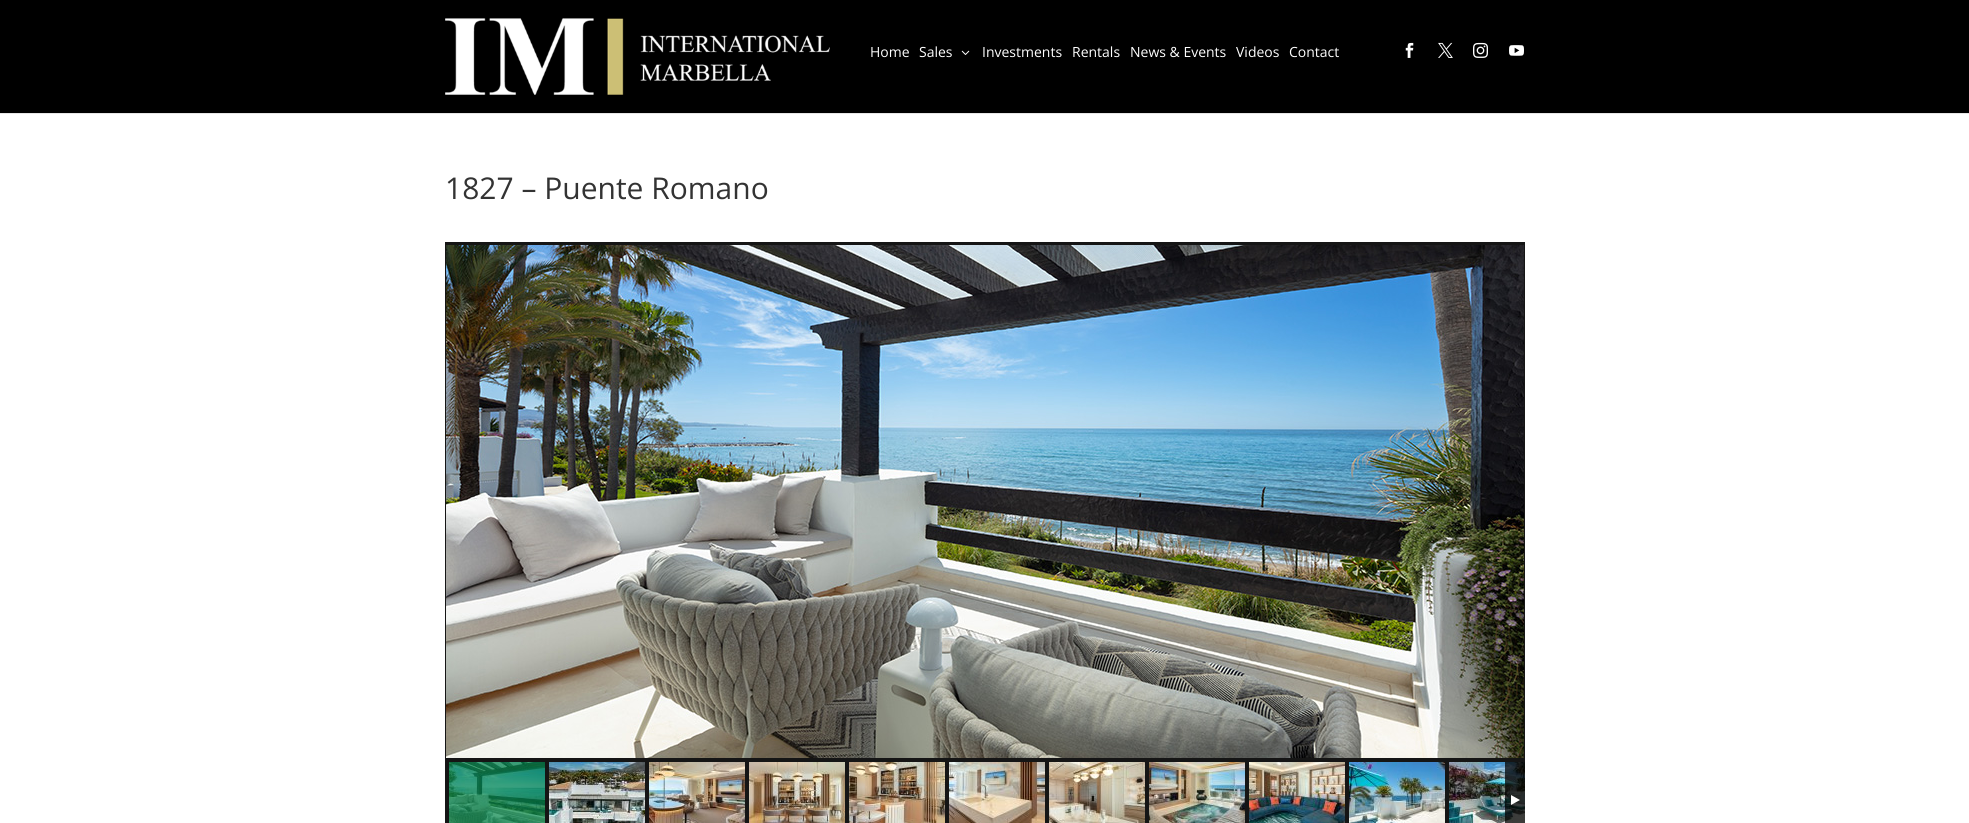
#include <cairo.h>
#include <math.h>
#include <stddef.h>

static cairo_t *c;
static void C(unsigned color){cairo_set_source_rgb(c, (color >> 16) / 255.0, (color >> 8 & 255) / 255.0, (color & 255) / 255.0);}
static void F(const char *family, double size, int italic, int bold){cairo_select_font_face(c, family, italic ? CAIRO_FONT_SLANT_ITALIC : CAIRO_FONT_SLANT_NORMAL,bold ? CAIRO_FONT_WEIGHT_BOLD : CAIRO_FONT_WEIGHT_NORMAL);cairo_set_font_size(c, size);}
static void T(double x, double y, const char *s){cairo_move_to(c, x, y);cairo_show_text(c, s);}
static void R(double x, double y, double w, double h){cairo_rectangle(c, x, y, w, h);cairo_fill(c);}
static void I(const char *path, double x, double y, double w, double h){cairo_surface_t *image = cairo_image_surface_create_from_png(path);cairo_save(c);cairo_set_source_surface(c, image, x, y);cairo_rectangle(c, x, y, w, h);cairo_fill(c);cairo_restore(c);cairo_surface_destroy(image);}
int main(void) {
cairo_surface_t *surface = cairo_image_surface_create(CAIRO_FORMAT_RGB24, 1969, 823);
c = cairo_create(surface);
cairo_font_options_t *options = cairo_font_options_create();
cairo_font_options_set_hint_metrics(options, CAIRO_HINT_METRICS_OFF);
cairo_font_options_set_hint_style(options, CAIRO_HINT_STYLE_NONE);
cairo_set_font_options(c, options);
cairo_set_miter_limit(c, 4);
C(0xffffff);
cairo_paint(c);
C(0xe6e6e6);
R(0,113,1969,1);
C(0x000000);
R(0,0,1969,113);
I("1.png",445,18,385,77);
F("Open Sans",14,0,0);
C(0xffffff);
T(870,57,"Home");
T(919,57,"Sales");
I("2.png",961,50,9,5);
T(982,57,"Investments");
T(1072,57,"Rentals");
T(1130,57,"News & Events");
T(1236,57,"Videos");
T(1289,57,"Contact");
I("3.png",1405,42,9,16);
I("4.png",1438,42,15,16);
I("5.png",1473,42,15,16);
I("6.png",1509,45,15,11);
F("Open Sans",30,0,0);
C(0x333333);
T(445,199,"1827 – Puente Romano");
C(0x151515);
R(445,242,1080,581);
I("7.png",446,245,1078,513);
C(0x02874a);
R(449,762,96,61);
I("8.png",449,762,96,61);
I("9.png",549,762,96,61);
I("10.png",649,762,96,61);
I("11.png",749,762,96,61);
I("12.png",849,762,96,61);
I("13.png",949,762,96,61);
I("14.png",1049,762,96,61);
I("15.png",1149,762,96,61);
I("16.png",1249,762,96,61);
I("17.png",1349,762,96,61);
I("18.png",1449,762,76,61);
cairo_set_source_rgba(c,0,0,0,0.75);
R(1505,762,20,61);
I("19.png",1511,795,9,10);
cairo_surface_write_to_png(surface, "o.png");
cairo_font_options_destroy(options);
cairo_destroy(c);
cairo_surface_destroy(surface);
return 0;
}
